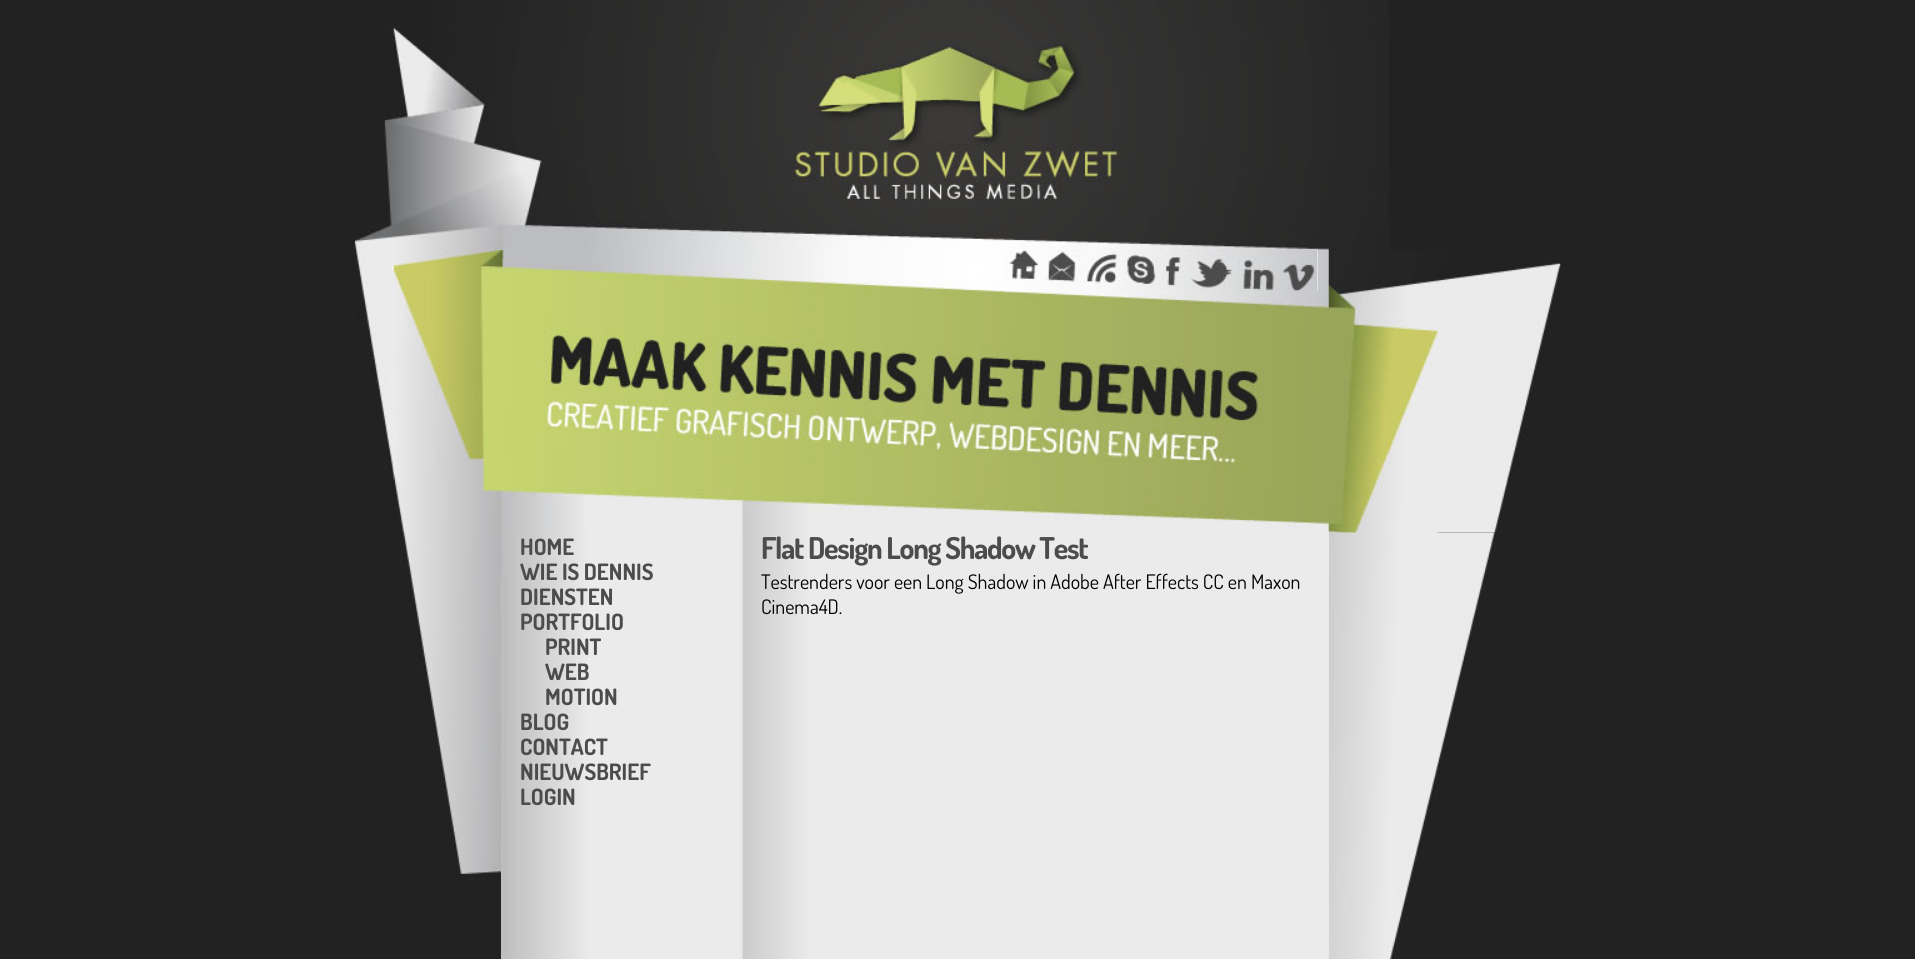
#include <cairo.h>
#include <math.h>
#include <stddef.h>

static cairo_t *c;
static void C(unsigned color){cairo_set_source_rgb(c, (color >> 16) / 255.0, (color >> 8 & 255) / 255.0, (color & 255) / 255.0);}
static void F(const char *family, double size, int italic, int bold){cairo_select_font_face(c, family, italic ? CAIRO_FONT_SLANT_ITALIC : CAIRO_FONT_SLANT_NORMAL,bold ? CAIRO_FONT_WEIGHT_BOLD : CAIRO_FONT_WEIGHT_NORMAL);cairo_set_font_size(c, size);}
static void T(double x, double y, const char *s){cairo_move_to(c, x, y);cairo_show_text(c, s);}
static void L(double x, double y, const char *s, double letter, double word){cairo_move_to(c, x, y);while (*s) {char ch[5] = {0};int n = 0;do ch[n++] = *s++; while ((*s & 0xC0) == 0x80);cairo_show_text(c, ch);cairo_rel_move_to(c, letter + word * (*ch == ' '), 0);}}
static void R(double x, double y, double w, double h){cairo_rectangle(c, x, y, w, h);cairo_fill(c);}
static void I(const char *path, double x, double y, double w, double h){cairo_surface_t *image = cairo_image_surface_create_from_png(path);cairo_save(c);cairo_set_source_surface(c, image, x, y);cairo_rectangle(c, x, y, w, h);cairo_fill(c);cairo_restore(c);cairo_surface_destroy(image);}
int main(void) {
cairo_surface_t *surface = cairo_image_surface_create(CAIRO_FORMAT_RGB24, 1915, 959);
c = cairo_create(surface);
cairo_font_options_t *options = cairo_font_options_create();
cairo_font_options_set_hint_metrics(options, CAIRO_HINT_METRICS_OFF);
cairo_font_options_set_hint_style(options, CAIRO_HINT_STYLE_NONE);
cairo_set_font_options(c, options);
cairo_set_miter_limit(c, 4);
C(0x222222);
cairo_paint(c);
I("1.png",348,0,1041,250);
I("2.png",792,42,331,161);
I("3.png",356,250,1210,283);
I("4.png",393,250,1045,283);
C(0xffffff);
R(1042,250,1,41);
I("5.png",1005,250,38,42);
I("6.png",1043,250,38,41);
I("7.png",1081,250,40,41);
I("8.png",1121,250,38,41);
I("9.png",1159,250,27,41);
I("10.png",1186,250,52,41);
I("11.png",1237,250,41,41);
R(1317,250,1,41);
I("12.png",1277,250,41,42);
I("13.png",393,532,1103,427);
C(0xbdbdbd);
R(501,573,6,386);
F("Dosis",22.5,0,1);
C(0x4c4c4c);
T(520,555,"HOME");
T(520,580,"WIE IS DENNIS");
T(520,605,"DIENSTEN");
T(520,630,"PORTFOLIO");
T(545,655,"PRINT");
T(545,680,"WEB");
T(545,705,"MOTION");
T(520,730,"BLOG");
T(520,755,"CONTACT");
T(520,780,"NIEUWSBRIEF");
T(520,805,"LOGIN");
I("14.png",1328,532,1,427);
F("Dosis",30,0,1);
L(761,559,"Flat Design Long Shadow Test",-1.25,0);
F("Dosis",20,0,0);
C(0x000000);
T(761,589,"Testrenders voor een Long Shadow in Adobe After Effects CC en Maxon");
T(761,614,"Cinema4D.");
cairo_surface_write_to_png(surface, "o.png");
cairo_font_options_destroy(options);
cairo_destroy(c);
cairo_surface_destroy(surface);
return 0;
}
